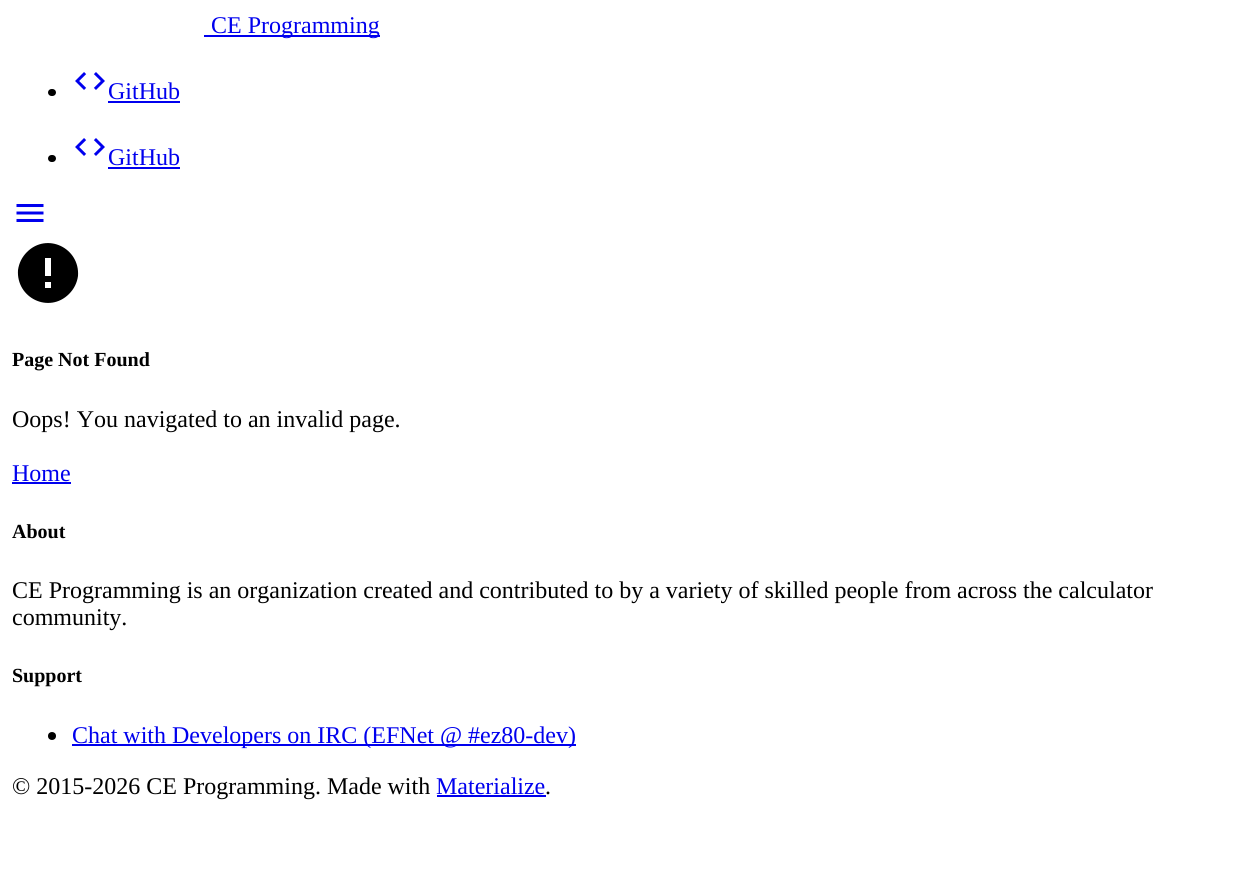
#include <cairo.h>
#include <math.h>
#include <stddef.h>

static cairo_t *c;
static void C(unsigned color){cairo_set_source_rgb(c, (color >> 16) / 255.0, (color >> 8 & 255) / 255.0, (color & 255) / 255.0);}
static void F(const char *family, double size, int italic, int bold){cairo_select_font_face(c, family, italic ? CAIRO_FONT_SLANT_ITALIC : CAIRO_FONT_SLANT_NORMAL,bold ? CAIRO_FONT_WEIGHT_BOLD : CAIRO_FONT_WEIGHT_NORMAL);cairo_set_font_size(c, size);}
static void T(double x, double y, const char *s){cairo_move_to(c, x, y);cairo_show_text(c, s);}
static void R(double x, double y, double w, double h){cairo_rectangle(c, x, y, w, h);cairo_fill(c);}
static void Q(double x, double y, double w, double h, double r){cairo_new_sub_path(c);cairo_arc(c, x + w - r, y + h - r, r, 0, M_PI / 2);cairo_arc(c, x + r, y + h - r, r, M_PI / 2, M_PI);cairo_arc(c, x + r, y + r, r, M_PI, 1.5 * M_PI);cairo_arc(c, x + w - r, y + r, r, 1.5 * M_PI, 2 * M_PI);cairo_close_path(c);}
static void I(const char *path, double x, double y, double w, double h){cairo_surface_t *image = cairo_image_surface_create_from_png(path);cairo_save(c);cairo_set_source_surface(c, image, x, y);cairo_rectangle(c, x, y, w, h);cairo_fill(c);cairo_restore(c);cairo_surface_destroy(image);}
int main(void) {
cairo_surface_t *surface = cairo_image_surface_create(CAIRO_FORMAT_RGB24, 1240, 892);
c = cairo_create(surface);
cairo_font_options_t *options = cairo_font_options_create();
cairo_font_options_set_hint_metrics(options, CAIRO_HINT_METRICS_OFF);
cairo_font_options_set_hint_style(options, CAIRO_HINT_STYLE_NONE);
cairo_set_font_options(c, options);
cairo_set_miter_limit(c, 4);
C(0xffffff);
cairo_paint(c);
C(0x0000ee);
R(204,35,176,2);
F("Liberation Serif",24,0,0);
T(211,33,"CE Programming");
C(0x000000);
Q(48,89,8,7,3.5);
cairo_fill(c);
I("1.png",75,72,30,18);
C(0x0000ee);
T(108,99,"GitHub");
R(108,101,72,2);
C(0x000000);
Q(48,155,8,7,3.5);
cairo_fill(c);
I("1.png",75,138,30,18);
C(0x0000ee);
T(108,165,"GitHub");
R(108,167,72,2);
I("2.png",16,204,28,18);
C(0x000000);
cairo_new_path(c);
cairo_move_to(c,51,276);
cairo_line_to(c,51,258);
cairo_line_to(c,45,258);
cairo_line_to(c,45,276);
cairo_close_path(c);
cairo_move_to(c,51,288);
cairo_line_to(c,51,282);
cairo_line_to(c,45,282);
cairo_line_to(c,45,288);
cairo_close_path(c);
cairo_move_to(c,27,252);
cairo_curve_to(c,47,232,80,248,78,276);
cairo_curve_to(c,77,283,74,289,69,294);
cairo_curve_to(c,49,314,16,298,18,270);
cairo_curve_to(c,19,263,22,257,27,252);
cairo_close_path(c);
cairo_fill(c);
F("Liberation Serif",20,0,1);
T(12,366,"Page Not Found");
F("Liberation Serif",24,0,0);
T(12,427,"Oops! You navigated to an invalid page.");
C(0x0000ee);
T(12,481,"Home");
R(12,482,59,2);
F("Liberation Serif",20,0,1);
C(0x000000);
T(12,538,"About");
F("Liberation Serif",24,0,0);
T(12,598,"CE Programming is an organization created and contributed to by a variety of skilled people from across the calculator");
T(12,625,"community.");
F("Liberation Serif",20,0,1);
T(12,682,"Support");
cairo_new_path(c);
cairo_arc(c,52,736,4,0,2 * M_PI);
cairo_fill(c);
C(0x0000ee);
R(72,744,504,2);
F("Liberation Serif",24,0,0);
T(72,743,"Chat with Developers on IRC (EFNet @ #ez80-dev)");
C(0x000000);
T(12,794,"© 2015-2026 CE Programming. Made with");
C(0x0000ee);
T(436,794,"Materialize");
R(437,795,109,2);
C(0x000000);
T(545,794,".");
cairo_surface_write_to_png(surface, "o.png");
cairo_font_options_destroy(options);
cairo_destroy(c);
cairo_surface_destroy(surface);
return 0;
}
